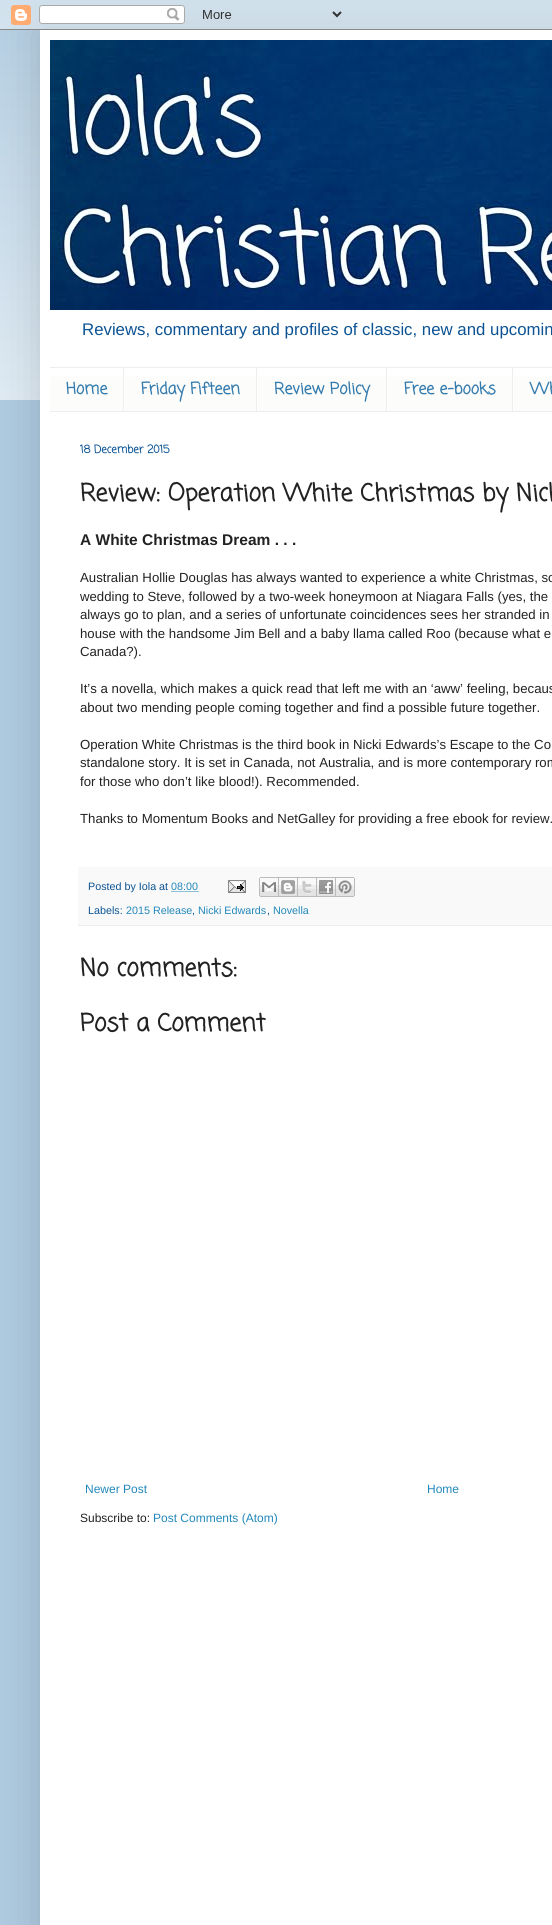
#include <cairo.h>
#include <math.h>
#include <stddef.h>

static cairo_t *c;
static void C(unsigned color){cairo_set_source_rgb(c, (color >> 16) / 255.0, (color >> 8 & 255) / 255.0, (color & 255) / 255.0);}
static void F(const char *family, double size, int italic, int bold){cairo_select_font_face(c, family, italic ? CAIRO_FONT_SLANT_ITALIC : CAIRO_FONT_SLANT_NORMAL,bold ? CAIRO_FONT_WEIGHT_BOLD : CAIRO_FONT_WEIGHT_NORMAL);cairo_set_font_size(c, size);}
static void T(double x, double y, const char *s){cairo_move_to(c, x, y);cairo_show_text(c, s);}
static void R(double x, double y, double w, double h){cairo_rectangle(c, x, y, w, h);cairo_fill(c);}
static void Q(double x, double y, double w, double h, double r){cairo_new_sub_path(c);cairo_arc(c, x + w - r, y + h - r, r, 0, M_PI / 2);cairo_arc(c, x + r, y + h - r, r, M_PI / 2, M_PI);cairo_arc(c, x + r, y + r, r, M_PI, 1.5 * M_PI);cairo_arc(c, x + w - r, y + r, r, 1.5 * M_PI, 2 * M_PI);cairo_close_path(c);}
static void S(double x, double y, double w, double h, double r, double blur, double alpha){cairo_push_group_with_content(c, CAIRO_CONTENT_ALPHA);cairo_set_operator(c, CAIRO_OPERATOR_SOURCE);for (int i = 15; i >= -15 && fmin(w, h) + blur * i / 3 > 0; i -= 2) {double e = blur * i / 6;cairo_set_source_rgba(c, 0, 0, 0, alpha * erfc((i - 1) / 8.5) / 2);Q(x - e, y - e, w + 2 * e, h + 2 * e, fmax(0, fmin(r + e + blur * .6, fmin(w, h) / 2 + e)));cairo_fill(c);}cairo_pattern_t *soft = cairo_pop_group(c);cairo_mask(c, soft);cairo_pattern_destroy(soft);}
static void I(const char *path, double x, double y, double w, double h){cairo_surface_t *image = cairo_image_surface_create_from_png(path);cairo_save(c);cairo_set_source_surface(c, image, x, y);cairo_rectangle(c, x, y, w, h);cairo_fill(c);cairo_restore(c);cairo_surface_destroy(image);}
int main(void) {
cairo_surface_t *surface = cairo_image_surface_create(CAIRO_FORMAT_RGB24, 552, 1925);
c = cairo_create(surface);
cairo_font_options_t *options = cairo_font_options_create();
cairo_font_options_set_hint_metrics(options, CAIRO_HINT_METRICS_OFF);
cairo_font_options_set_hint_style(options, CAIRO_HINT_STYLE_NONE);
cairo_set_font_options(c, options);
cairo_set_miter_limit(c, 4);
C(0xaecadf);
cairo_paint(c);
I("1.png",0,0,552,400);
C(0x000000);
S(40,30,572,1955,0,20,.15);
I("2.png",0,0,552,30);
C(0xffffff);
R(40,30,512,1895);
I("3.png",50,40,502,270);
F("Liberation Sans",16.8,0,0);
C(0x0b5394);
T(82,335,"Reviews, commentary and profiles of classic, new and upcomin");
C(0xfcfcfa);
R(50,369,502,42);
I("4.png",50,368,502,9);
C(0xeeeeee);
R(50,367,502,1);
R(50,411,502,1);
R(123,368,1,43);
F("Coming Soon",16,0,1);
C(0x337bae);
T(66,394,"Home");
C(0xeeeeee);
R(256,368,1,43);
C(0xffffff);
R(124,377,1,34);
C(0x337bae);
T(141,394,"Friday Fifteen");
C(0xeeeeee);
R(386,368,1,43);
C(0xffffff);
R(257,377,1,34);
C(0x337bae);
T(274,394,"Review Policy");
C(0xeeeeee);
R(512,368,1,43);
C(0xffffff);
R(387,377,1,34);
C(0x337bae);
T(404,394,"Free e-books");
C(0xffffff);
R(513,377,1,34);
C(0x337bae);
T(530,394,"Wh");
F("Coming Soon",11,0,1);
C(0x0b5394);
T(80,453,"18 December 2015");
F("Coming Soon",24,0,1);
C(0x222222);
T(80,501,"Review: Operation White Christmas by Nick");
F("Liberation Sans",15.5,0,1);
T(80,545,"A White Christmas Dream . . .");
F("Liberation Sans",13.2,0,0);
T(80,582,"Australian Hollie Douglas has always wanted to experience a white Christmas, so");
T(80,601,"wedding to Steve, followed by a two-week honeymoon at Niagara Falls (yes, the");
T(80,619,"always go to plan, and a series of unfortunate coincidences sees her stranded in");
T(80,638,"house with the handsome Jim Bell and a baby llama called Roo (because what e");
T(80,656,"Canada?).");
T(80,693,"It’s a novella, which makes a quick read that left me with an ‘aww’ feeling, becaus");
T(80,712,"about two mending people coming together and find a possible future together.");
T(80,749,"Operation White Christmas is the third book in Nicki Edwards’s Escape to the Co");
T(80,767,"standalone story. It is set in Canada, not Australia, and is more contemporary rom");
T(80,786,"for those who don’t like blood!). Recommended.");
T(80,823,"Thanks to Momentum Books and NetGalley for providing a free ebook for review.");
C(0xf9f9f9);
R(78,867,474,58);
C(0xeeeeee);
R(78,925,474,1);
F("Liberation Sans",10.75,0,0);
C(0x0b5394);
T(88,890,"Posted by Iola at");
C(0x2288bb);
T(171,890,"08:00");
cairo_new_path(c);
cairo_move_to(c,171.5,891.5);
cairo_line_to(c,198.5,891.5);
cairo_set_line_width(c,1);
cairo_set_dash(c,(double[]){1,1},2,0);
cairo_stroke(c);
I("5.png",228,880,18,13);
I("6.png",259,877,20,20);
I("7.png",279,877,19,20);
I("8.png",298,877,19,20);
I("9.png",317,877,19,20);
I("10.png",336,877,19,20);
C(0x0b5394);
T(88,914,"Labels:");
C(0x2288bb);
T(126,914,"2015 Release");
C(0x0b5394);
T(192,914,",");
C(0x2288bb);
T(198,914,"Nicki Edwards");
C(0x0b5394);
T(267,914,",");
C(0x2288bb);
T(273,914,"Novella");
F("Coming Soon",24,0,1);
C(0x222222);
T(80,976,"No comments:");
T(80,1031,"Post a Comment");
F("Liberation Sans",12,0,0);
C(0x2288bb);
T(85,1493,"Newer Post");
T(427,1493,"Home");
C(0x222222);
T(80,1522,"Subscribe to:");
C(0x2288bb);
T(153,1522,"Post Comments (Atom)");
cairo_surface_write_to_png(surface, "o.png");
cairo_font_options_destroy(options);
cairo_destroy(c);
cairo_surface_destroy(surface);
return 0;
}
